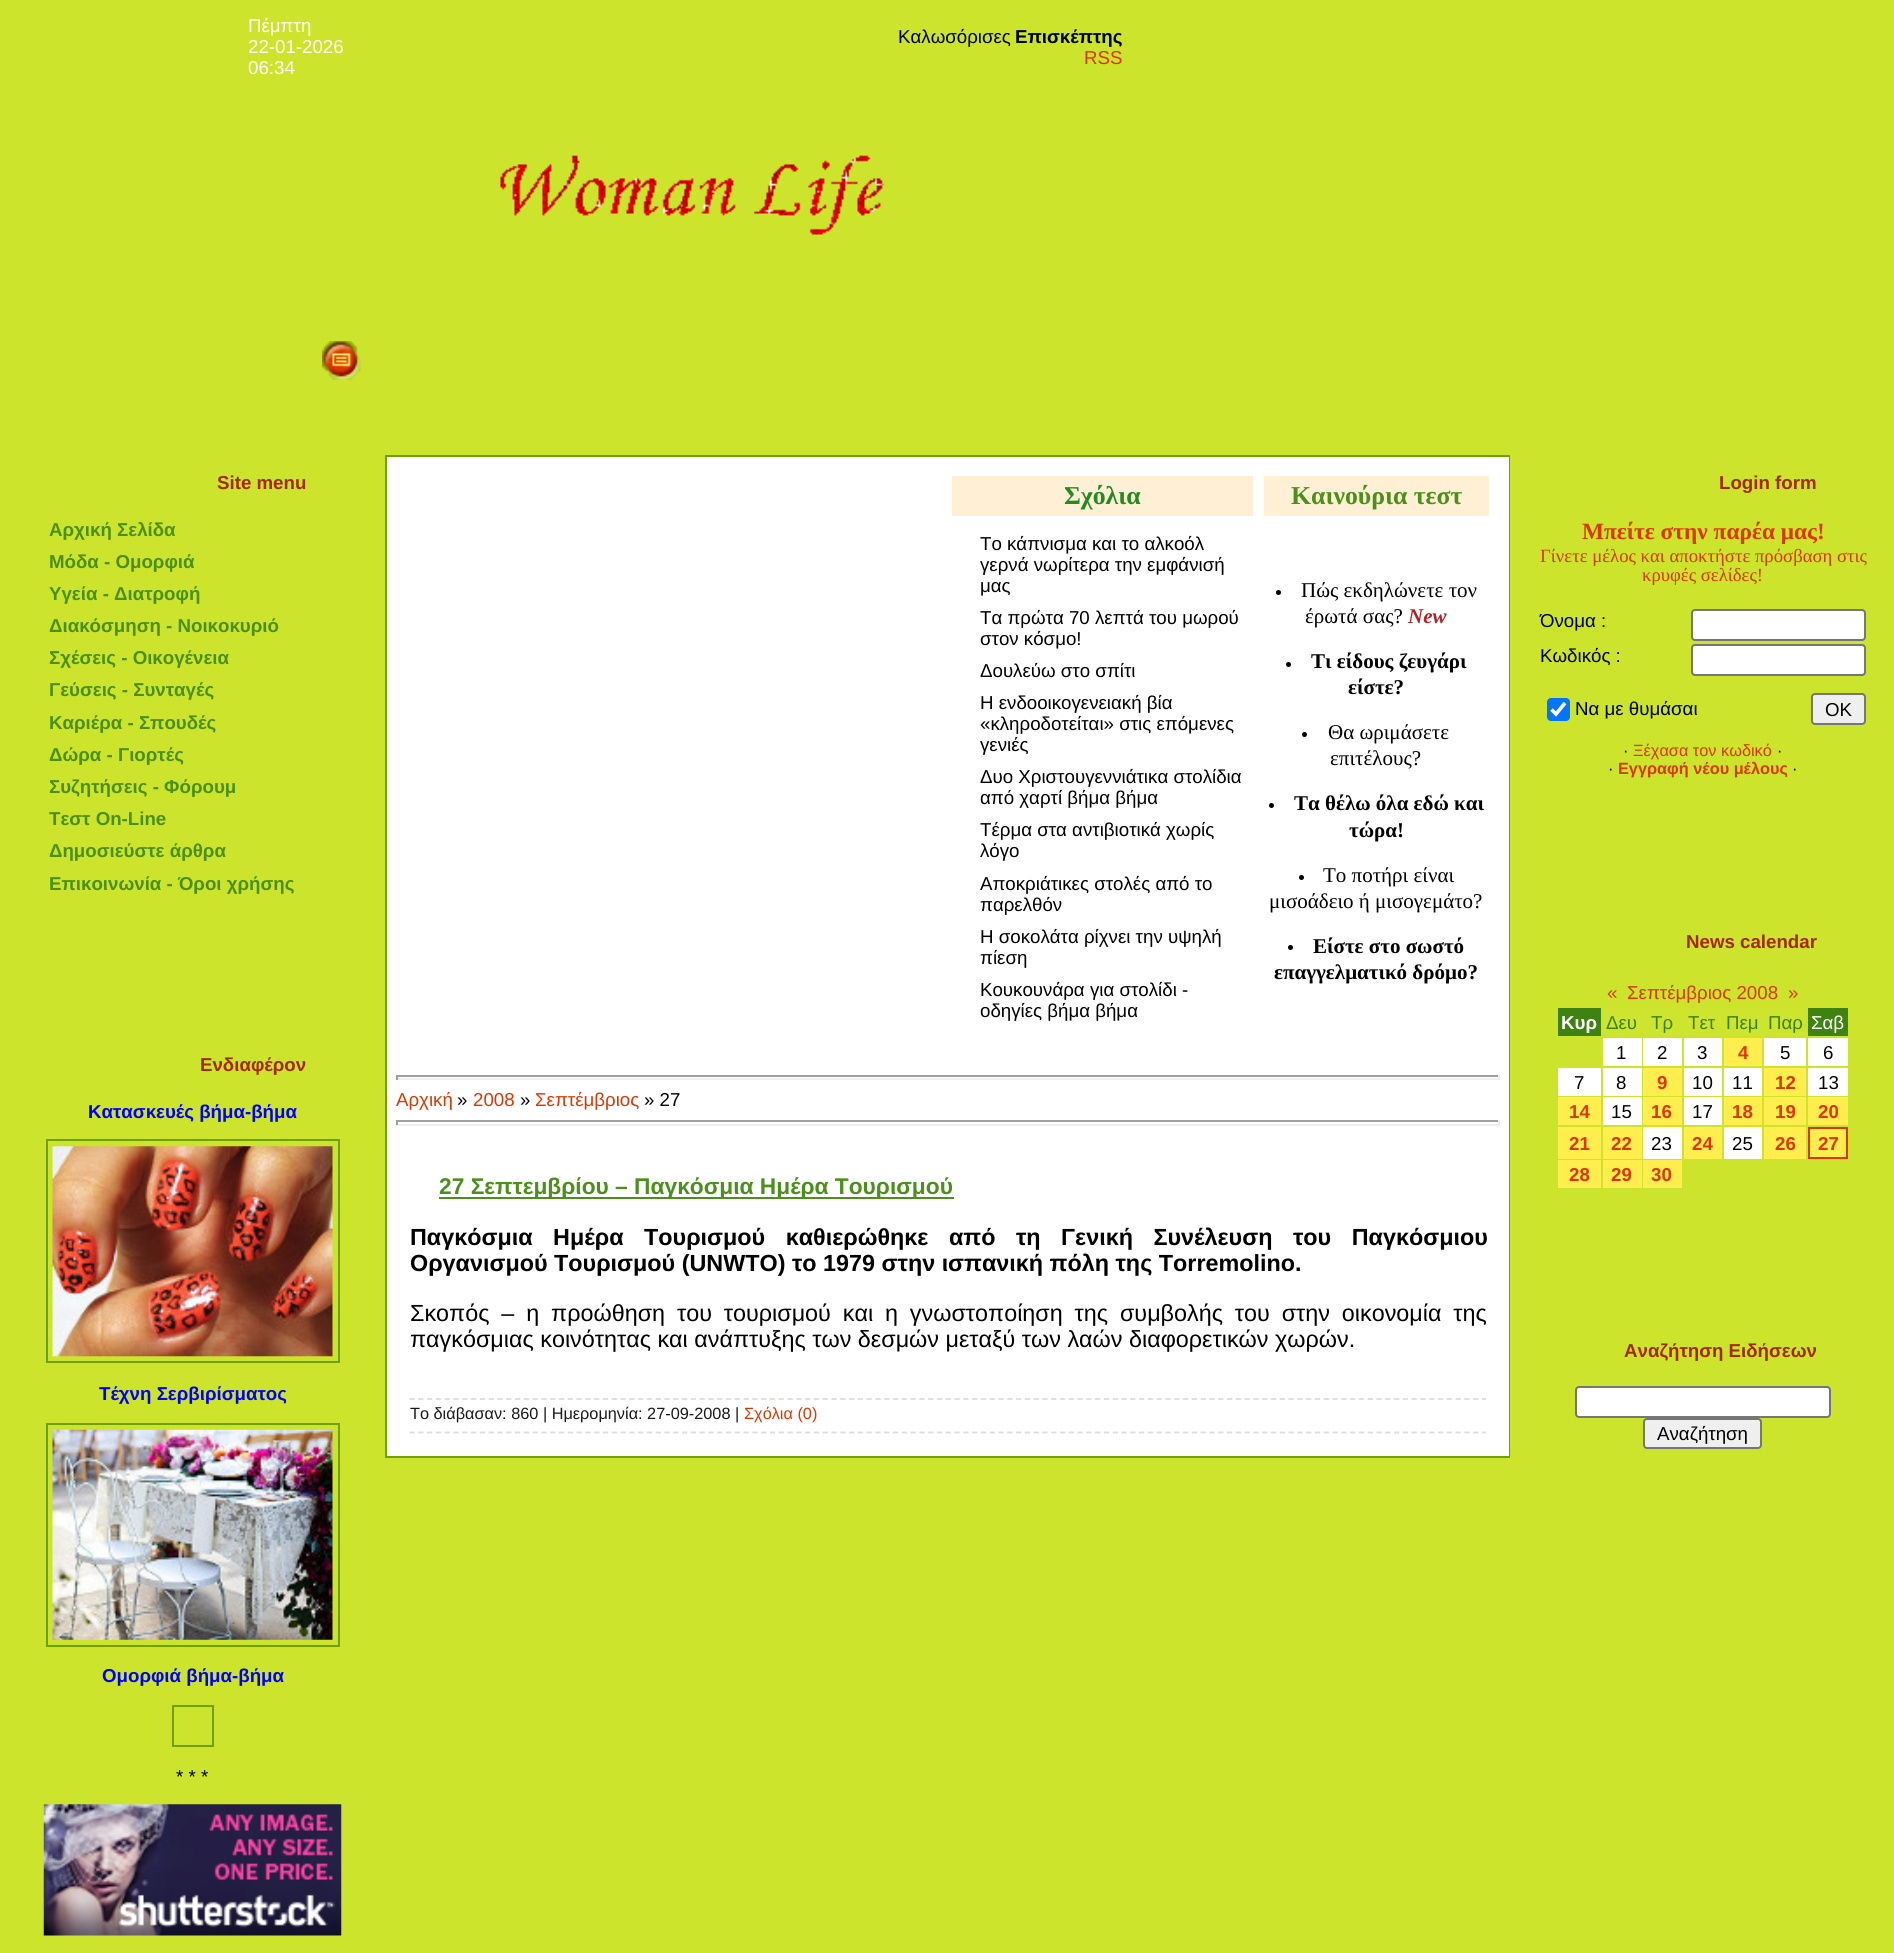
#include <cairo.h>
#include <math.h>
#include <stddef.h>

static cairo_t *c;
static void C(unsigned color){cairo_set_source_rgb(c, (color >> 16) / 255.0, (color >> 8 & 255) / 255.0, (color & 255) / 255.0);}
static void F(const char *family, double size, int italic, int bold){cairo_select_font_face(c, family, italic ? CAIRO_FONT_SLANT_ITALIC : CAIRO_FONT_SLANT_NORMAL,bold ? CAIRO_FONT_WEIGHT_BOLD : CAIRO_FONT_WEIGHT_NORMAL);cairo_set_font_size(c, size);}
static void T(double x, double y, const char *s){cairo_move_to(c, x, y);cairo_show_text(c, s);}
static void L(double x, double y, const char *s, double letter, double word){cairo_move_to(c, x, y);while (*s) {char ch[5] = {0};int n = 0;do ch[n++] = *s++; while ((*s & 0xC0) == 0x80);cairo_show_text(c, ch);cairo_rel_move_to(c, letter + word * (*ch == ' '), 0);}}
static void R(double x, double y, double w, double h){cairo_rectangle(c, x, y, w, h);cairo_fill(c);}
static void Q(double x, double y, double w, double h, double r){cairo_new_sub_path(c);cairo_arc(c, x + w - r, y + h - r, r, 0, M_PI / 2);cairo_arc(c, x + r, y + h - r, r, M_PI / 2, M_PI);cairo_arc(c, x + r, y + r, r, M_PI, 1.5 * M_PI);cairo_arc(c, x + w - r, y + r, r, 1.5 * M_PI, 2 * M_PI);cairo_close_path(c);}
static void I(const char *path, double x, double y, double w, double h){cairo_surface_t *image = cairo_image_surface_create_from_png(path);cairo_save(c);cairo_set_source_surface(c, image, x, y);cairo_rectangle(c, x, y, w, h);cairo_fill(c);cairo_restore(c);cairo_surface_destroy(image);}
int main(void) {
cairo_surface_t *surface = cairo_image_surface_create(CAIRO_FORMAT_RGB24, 1894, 1953);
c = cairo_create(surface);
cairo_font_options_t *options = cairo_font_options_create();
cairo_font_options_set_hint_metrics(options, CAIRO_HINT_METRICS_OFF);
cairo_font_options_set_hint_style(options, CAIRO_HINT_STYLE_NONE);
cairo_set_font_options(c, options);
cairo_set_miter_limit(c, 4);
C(0xcce42c);
cairo_paint(c);
F("Liberation Sans",18.7,0,0);
C(0xffffff);
T(248,32,"Πέμπτη");
T(248,53,"22-01-2026");
T(248,74,"06:34");
C(0x000000);
T(898,43,"Καλωσόρισες");
F("Liberation Sans",18.7,0,1);
T(1015,43,"Επισκέπτης");
F("Liberation Sans",18.7,0,0);
C(0xdc3700);
T(1084,64,"RSS");
I("1.png",500,155,385,80);
I("2.png",322,341,39,39);
F("Liberation Sans",18.7,0,1);
C(0xa42900);
T(217,489,"Site menu");
C(0x4b901a);
T(49,536,"Αρχική Σελίδα");
T(49,568,"Μόδα - Ομορφιά");
T(49,600,"Υγεία - Διατροφή");
T(49,632,"Διακόσμηση - Νοικοκυριό");
T(49,664,"Σχέσεις - Οικογένεια");
T(49,696,"Γεύσεις - Συνταγές");
T(49,729,"Καριέρα - Σπουδές");
T(49,761,"Δώρα - Γιορτές");
T(49,793,"Συζητήσεις - Φόρουμ");
T(49,825,"Τεστ On-Line");
T(49,857,"Δημοσιεύστε άρθρα");
T(49,890,"Επικοινωνία - Όροι χρήσης");
C(0xa42900);
T(200,1071,"Ενδιαφέρον");
C(0x0000ff);
T(88,1118,"Κατασκευές βήμα-βήμα");
cairo_rectangle(c,47,1140,292,222);
C(0x6da104);
cairo_stroke(c);
I("3.png",52,1146,281,211);
C(0x0000ff);
T(99,1400,"Τέχνη Σερβιρίσματος");
cairo_rectangle(c,47,1424,292,222);
C(0x6da104);
cairo_stroke(c);
I("4.png",52,1429,281,211);
C(0x0000ff);
T(102,1682,"Ομορφιά βήμα-βήμα");
cairo_rectangle(c,173,1706,40,40);
C(0x6da104);
cairo_stroke(c);
F("Liberation Sans",18.7,0,0);
C(0x000000);
T(176,1783,"* * *");
I("5.png",43,1804,299,132);
cairo_rectangle(c,386,456,1123,1001);
C(0x6da104);
cairo_stroke(c);
C(0xffffff);
R(387,457,1122,999);
C(0xffefd5);
R(952,476,301,40);
F("Liberation Serif",25.75,0,1);
C(0x228b22);
T(1064,504,"Σχόλια");
C(0xffefd5);
R(1264,476,225,40);
C(0x4b901a);
T(1291,504,"Καινούρια τεστ");
F("Liberation Sans",18.7,0,0);
C(0x000000);
T(980,550,"Το κάπνισμα και το αλκοόλ");
T(980,571,"γερνά νωρίτερα την εμφάνισή");
T(980,592,"μας");
T(980,624,"Τα πρώτα 70 λεπτά του μωρού");
T(980,645,"στον κόσμο!");
T(980,677,"Δουλεύω στο σπίτι");
T(980,709,"Η ενδοοικογενειακή βία");
T(980,730,"«κληροδοτείται» στις επόμενες");
T(980,751,"γενιές");
T(980,783,"Δυο Χριστουγεννιάτικα στολίδια");
T(980,804,"από χαρτί βήμα βήμα");
T(980,836,"Τέρμα στα αντιβιοτικά χωρίς");
T(980,857,"λόγο");
T(980,890,"Αποκριάτικες στολές από το");
T(980,911,"παρελθόν");
T(980,943,"Η σοκολάτα ρίχνει την υψηλή");
T(980,964,"πίεση");
T(980,996,"Κουκουνάρα για στολίδι -");
T(980,1017,"οδηγίες βήμα βήμα");
cairo_new_path(c);
cairo_arc(c,1278.5,592.5,2.5,0,2 * M_PI);
cairo_fill(c);
F("Liberation Serif",21,0,0);
T(1301,597,"Πώς εκδηλώνετε τον");
T(1305,623,"έρωτά σας?");
F("Liberation Serif",21,1,1);
C(0xb22222);
T(1408,623,"New");
C(0x000000);
cairo_new_path(c);
cairo_arc(c,1288.5,664.5,2.5,0,2 * M_PI);
cairo_fill(c);
F("Liberation Serif",21,0,1);
T(1311,668,"Τι είδους ζευγάρι");
T(1348,694,"είστε?");
cairo_new_path(c);
cairo_arc(c,1304.5,734.5,2.5,0,2 * M_PI);
cairo_fill(c);
F("Liberation Serif",21,0,0);
T(1328,739,"Θα ωριμάσετε");
T(1330,765,"επιτέλους?");
cairo_new_path(c);
cairo_arc(c,1271.5,805.5,2.5,0,2 * M_PI);
cairo_fill(c);
F("Liberation Serif",21,0,1);
T(1294,810,"Τα θέλω όλα εδώ και");
T(1349,837,"τώρα!");
cairo_new_path(c);
cairo_arc(c,1301.5,877.5,2.5,0,2 * M_PI);
cairo_fill(c);
F("Liberation Serif",21,0,0);
T(1323,882,"Το ποτήρι είναι");
T(1269,908,"μισοάδειο ή μισογεμάτο?");
cairo_new_path(c);
cairo_arc(c,1290.5,947.5,2.5,0,2 * M_PI);
cairo_fill(c);
F("Liberation Serif",21,0,1);
T(1313,953,"Είστε στο σωστό");
T(1274,979,"επαγγελματικό δρόμο?");
C(0x9f9f9f);
R(396,1075,1104,2);
C(0xeeeeee);
R(1498,1075,2,5);
R(396,1078,1104,2);
C(0x9f9f9f);
R(396,1075,2,5);
F("Liberation Sans",18.7,0,0);
C(0xdc3700);
T(396,1106,"Αρχική");
C(0x000000);
T(457,1106,"»");
C(0xdc3700);
T(473,1106,"2008");
C(0x000000);
T(520,1106,"»");
C(0xdc3700);
T(535,1106,"Σεπτέμβριος");
C(0x000000);
T(644,1106,"» 27");
C(0x9f9f9f);
R(396,1120,1104,2);
C(0xeeeeee);
R(1498,1120,2,5);
R(396,1124,1104,2);
C(0x9f9f9f);
R(396,1120,2,5);
C(0x4b901a);
R(439,1197,515,2);
F("Liberation Sans",22.75,0,1);
T(439,1194,"27 Σεπτεμβρίου – Παγκόσμια Ημέρα Τουρισμού");
F("Liberation Sans",23.35,0,1);
C(0x000000);
L(410,1245,"Παγκόσμια Ημέρα Τουρισμού καθιερώθηκε από τη Γενική Συνέλευση του Παγκόσμιου",0,14);
T(410,1271,"Οργανισμού Τουρισμού (UNWTO) το 1979 στην ισπανική πόλη της Torremolino.");
F("Liberation Sans",23.35,0,0);
L(410,1321,"Σκοπός – η προώθηση του τουρισμού και η γνωστοποίηση της συμβολής του στην οικονομία της",0,5.4);
T(410,1347,"παγκόσμιας κοινότητας και ανάπτυξης των δεσμών μεταξύ των λαών διαφορετικών χωρών.");
cairo_new_path(c);
cairo_move_to(c,409.5,1399);
cairo_line_to(c,1486,1399);
C(0xdddddd);
cairo_set_line_width(c,1.8);
cairo_set_dash(c,(double[]){5.25,3.54},2,0);
cairo_stroke(c);
cairo_new_path(c);
cairo_move_to(c,409.5,1432.5);
cairo_line_to(c,1486,1432.5);
cairo_stroke(c);
F("Liberation Sans",16.3,0,0);
C(0x1a1a1a);
T(410,1419,"Το διάβασαν: 860 | Ημερομηνία: 27-09-2008 |");
C(0xdc3700);
T(744,1419,"Σχόλια (0)");
F("Liberation Sans",18.7,0,1);
C(0xa42900);
T(1719,489,"Login form");
F("Liberation Serif",23.35,0,1);
C(0xdc3700);
T(1582,539,"Μπείτε στην παρέα μας!");
F("Liberation Serif",18.7,0,0);
T(1540,562,"Γίνετε μέλος και αποκτήστε πρόσβαση στις");
T(1642,581,"κρυφές σελίδες!");
F("Liberation Sans",18.7,0,0);
C(0x000000);
T(1540,627,"Όνομα :");
C(0xffffff);
Q(1692,610,173,30,3);
cairo_fill_preserve(c);
C(0x767676);
cairo_set_line_width(c,2);
cairo_set_dash(c,NULL,0,0);
cairo_stroke(c);
C(0x000000);
T(1540,662,"Κωδικός :");
C(0xffffff);
Q(1692,645,173,30,3);
cairo_fill_preserve(c);
C(0x767676);
cairo_stroke(c);
C(0x0075ff);
Q(1547,698,23,23,4);
cairo_fill(c);
cairo_new_path(c);
cairo_move_to(c,1551.5,709.5);
cairo_line_to(c,1556,714);
cairo_line_to(c,1565,703);
C(0xffffff);
cairo_set_line_width(c,3.6);
cairo_stroke(c);
C(0x000000);
T(1575,715,"Να με θυμάσαι");
C(0xefefef);
Q(1812,694,53,30,3);
cairo_fill_preserve(c);
C(0x767676);
cairo_set_line_width(c,2);
cairo_stroke(c);
C(0x000000);
T(1825,716,"OK");
F("Liberation Sans",16.3,0,0);
T(1623,756,"·");
C(0xdc3700);
T(1633,756,"Ξέχασα τον κωδικό");
C(0x000000);
T(1777,756,"·");
T(1608,774,"·");
F("Liberation Sans",16.3,0,1);
C(0xdc3700);
T(1618,774,"Εγγραφή νέου μέλους");
F("Liberation Sans",16.3,0,0);
C(0x000000);
T(1792,774,"·");
F("Liberation Sans",18.7,0,1);
C(0xa42900);
T(1686,948,"News calendar");
F("Liberation Sans",18.7,0,0);
C(0xdc3700);
T(1607,999,"«");
T(1627,999,"Σεπτέμβριος 2008");
T(1788,999,"»");
C(0x3e8311);
R(1558,1008,43,28);
F("Liberation Sans",18.7,0,1);
C(0xffffff);
T(1561,1029,"Κυρ");
C(0xcee530);
R(1603,1008,39,28);
F("Liberation Sans",18.7,0,0);
C(0x3e8311);
T(1606,1029,"Δευ");
C(0xcee530);
R(1643,1008,39,28);
C(0x3e8311);
T(1651,1029,"Τρ");
C(0xcee530);
R(1684,1008,38,28);
C(0x3e8311);
T(1688,1029,"Τετ");
C(0xcee530);
R(1724,1008,38,28);
C(0x3e8311);
T(1726,1029,"Πεμ");
C(0xcee530);
R(1764,1008,42,28);
C(0x3e8311);
T(1768,1029,"Παρ");
R(1808,1008,40,28);
C(0xffffff);
T(1811,1029,"Σαβ");
R(1603,1038,39,28);
C(0x000000);
T(1616,1059,"1");
C(0xffffff);
R(1643,1038,39,28);
C(0x000000);
T(1657,1059,"2");
C(0xffffff);
R(1684,1038,38,28);
C(0x000000);
T(1697,1059,"3");
C(0xffee4d);
R(1724,1038,38,28);
F("Liberation Sans",18.7,0,1);
C(0xdc3700);
T(1738,1059,"4");
C(0xffffff);
R(1764,1038,42,28);
F("Liberation Sans",18.7,0,0);
C(0x000000);
T(1780,1059,"5");
C(0xffffff);
R(1808,1038,40,28);
C(0x000000);
T(1823,1059,"6");
C(0xffffff);
R(1558,1068,43,28);
C(0x000000);
T(1574,1089,"7");
C(0xffffff);
R(1603,1068,39,28);
C(0x000000);
T(1616,1089,"8");
C(0xffee4d);
R(1643,1068,39,28);
F("Liberation Sans",18.7,0,1);
C(0xdc3700);
T(1657,1089,"9");
C(0xffffff);
R(1684,1068,38,28);
F("Liberation Sans",18.7,0,0);
C(0x000000);
T(1692,1089,"10");
C(0xffffff);
R(1724,1068,38,28);
C(0x000000);
T(1732,1089,"11");
C(0xffee4d);
R(1764,1068,42,28);
F("Liberation Sans",18.7,0,1);
C(0xdc3700);
T(1775,1089,"12");
C(0xffffff);
R(1808,1068,40,28);
F("Liberation Sans",18.7,0,0);
C(0x000000);
T(1818,1089,"13");
C(0xffee4d);
R(1558,1097,43,28);
F("Liberation Sans",18.7,0,1);
C(0xdc3700);
T(1569,1118,"14");
C(0xffffff);
R(1603,1097,39,28);
F("Liberation Sans",18.7,0,0);
C(0x000000);
T(1611,1118,"15");
C(0xffee4d);
R(1643,1097,39,28);
F("Liberation Sans",18.7,0,1);
C(0xdc3700);
T(1651,1118,"16");
C(0xffffff);
R(1684,1097,38,28);
F("Liberation Sans",18.7,0,0);
C(0x000000);
T(1692,1118,"17");
C(0xffee4d);
R(1724,1097,38,28);
F("Liberation Sans",18.7,0,1);
C(0xdc3700);
T(1732,1118,"18");
C(0xffee4d);
R(1764,1097,42,28);
C(0xdc3700);
T(1775,1118,"19");
C(0xffee4d);
R(1808,1097,40,28);
C(0xdc3700);
T(1818,1118,"20");
C(0xffee4d);
R(1558,1127,43,32);
C(0xdc3700);
T(1569,1150,"21");
C(0xffee4d);
R(1603,1127,39,32);
C(0xdc3700);
T(1611,1150,"22");
C(0xffffff);
R(1643,1127,39,32);
F("Liberation Sans",18.7,0,0);
C(0x000000);
T(1651,1150,"23");
C(0xffee4d);
R(1684,1127,38,32);
F("Liberation Sans",18.7,0,1);
C(0xdc3700);
T(1692,1150,"24");
C(0xffffff);
R(1724,1127,38,32);
F("Liberation Sans",18.7,0,0);
C(0x000000);
T(1732,1150,"25");
C(0xffee4d);
R(1764,1127,42,32);
F("Liberation Sans",18.7,0,1);
C(0xdc3700);
T(1775,1150,"26");
C(0xffee4d);
cairo_rectangle(c,1809,1128,38,30);
cairo_fill_preserve(c);
C(0xdc3700);
cairo_stroke(c);
T(1818,1150,"27");
C(0xffee4d);
R(1558,1160,43,28);
C(0xdc3700);
T(1569,1181,"28");
C(0xffee4d);
R(1603,1160,39,28);
C(0xdc3700);
T(1611,1181,"29");
C(0xffee4d);
R(1643,1160,39,28);
C(0xdc3700);
T(1651,1181,"30");
C(0xa42900);
T(1624,1357,"Αναζήτηση Ειδήσεων");
C(0xffffff);
Q(1576,1387,254,30,3);
cairo_fill_preserve(c);
C(0x767676);
cairo_stroke(c);
C(0xefefef);
Q(1644,1419,117,29,3);
cairo_fill_preserve(c);
C(0x767676);
cairo_stroke(c);
F("Liberation Sans",18.7,0,0);
C(0x000000);
T(1657,1440,"Αναζήτηση");
cairo_surface_write_to_png(surface, "o.png");
cairo_font_options_destroy(options);
cairo_destroy(c);
cairo_surface_destroy(surface);
return 0;
}
